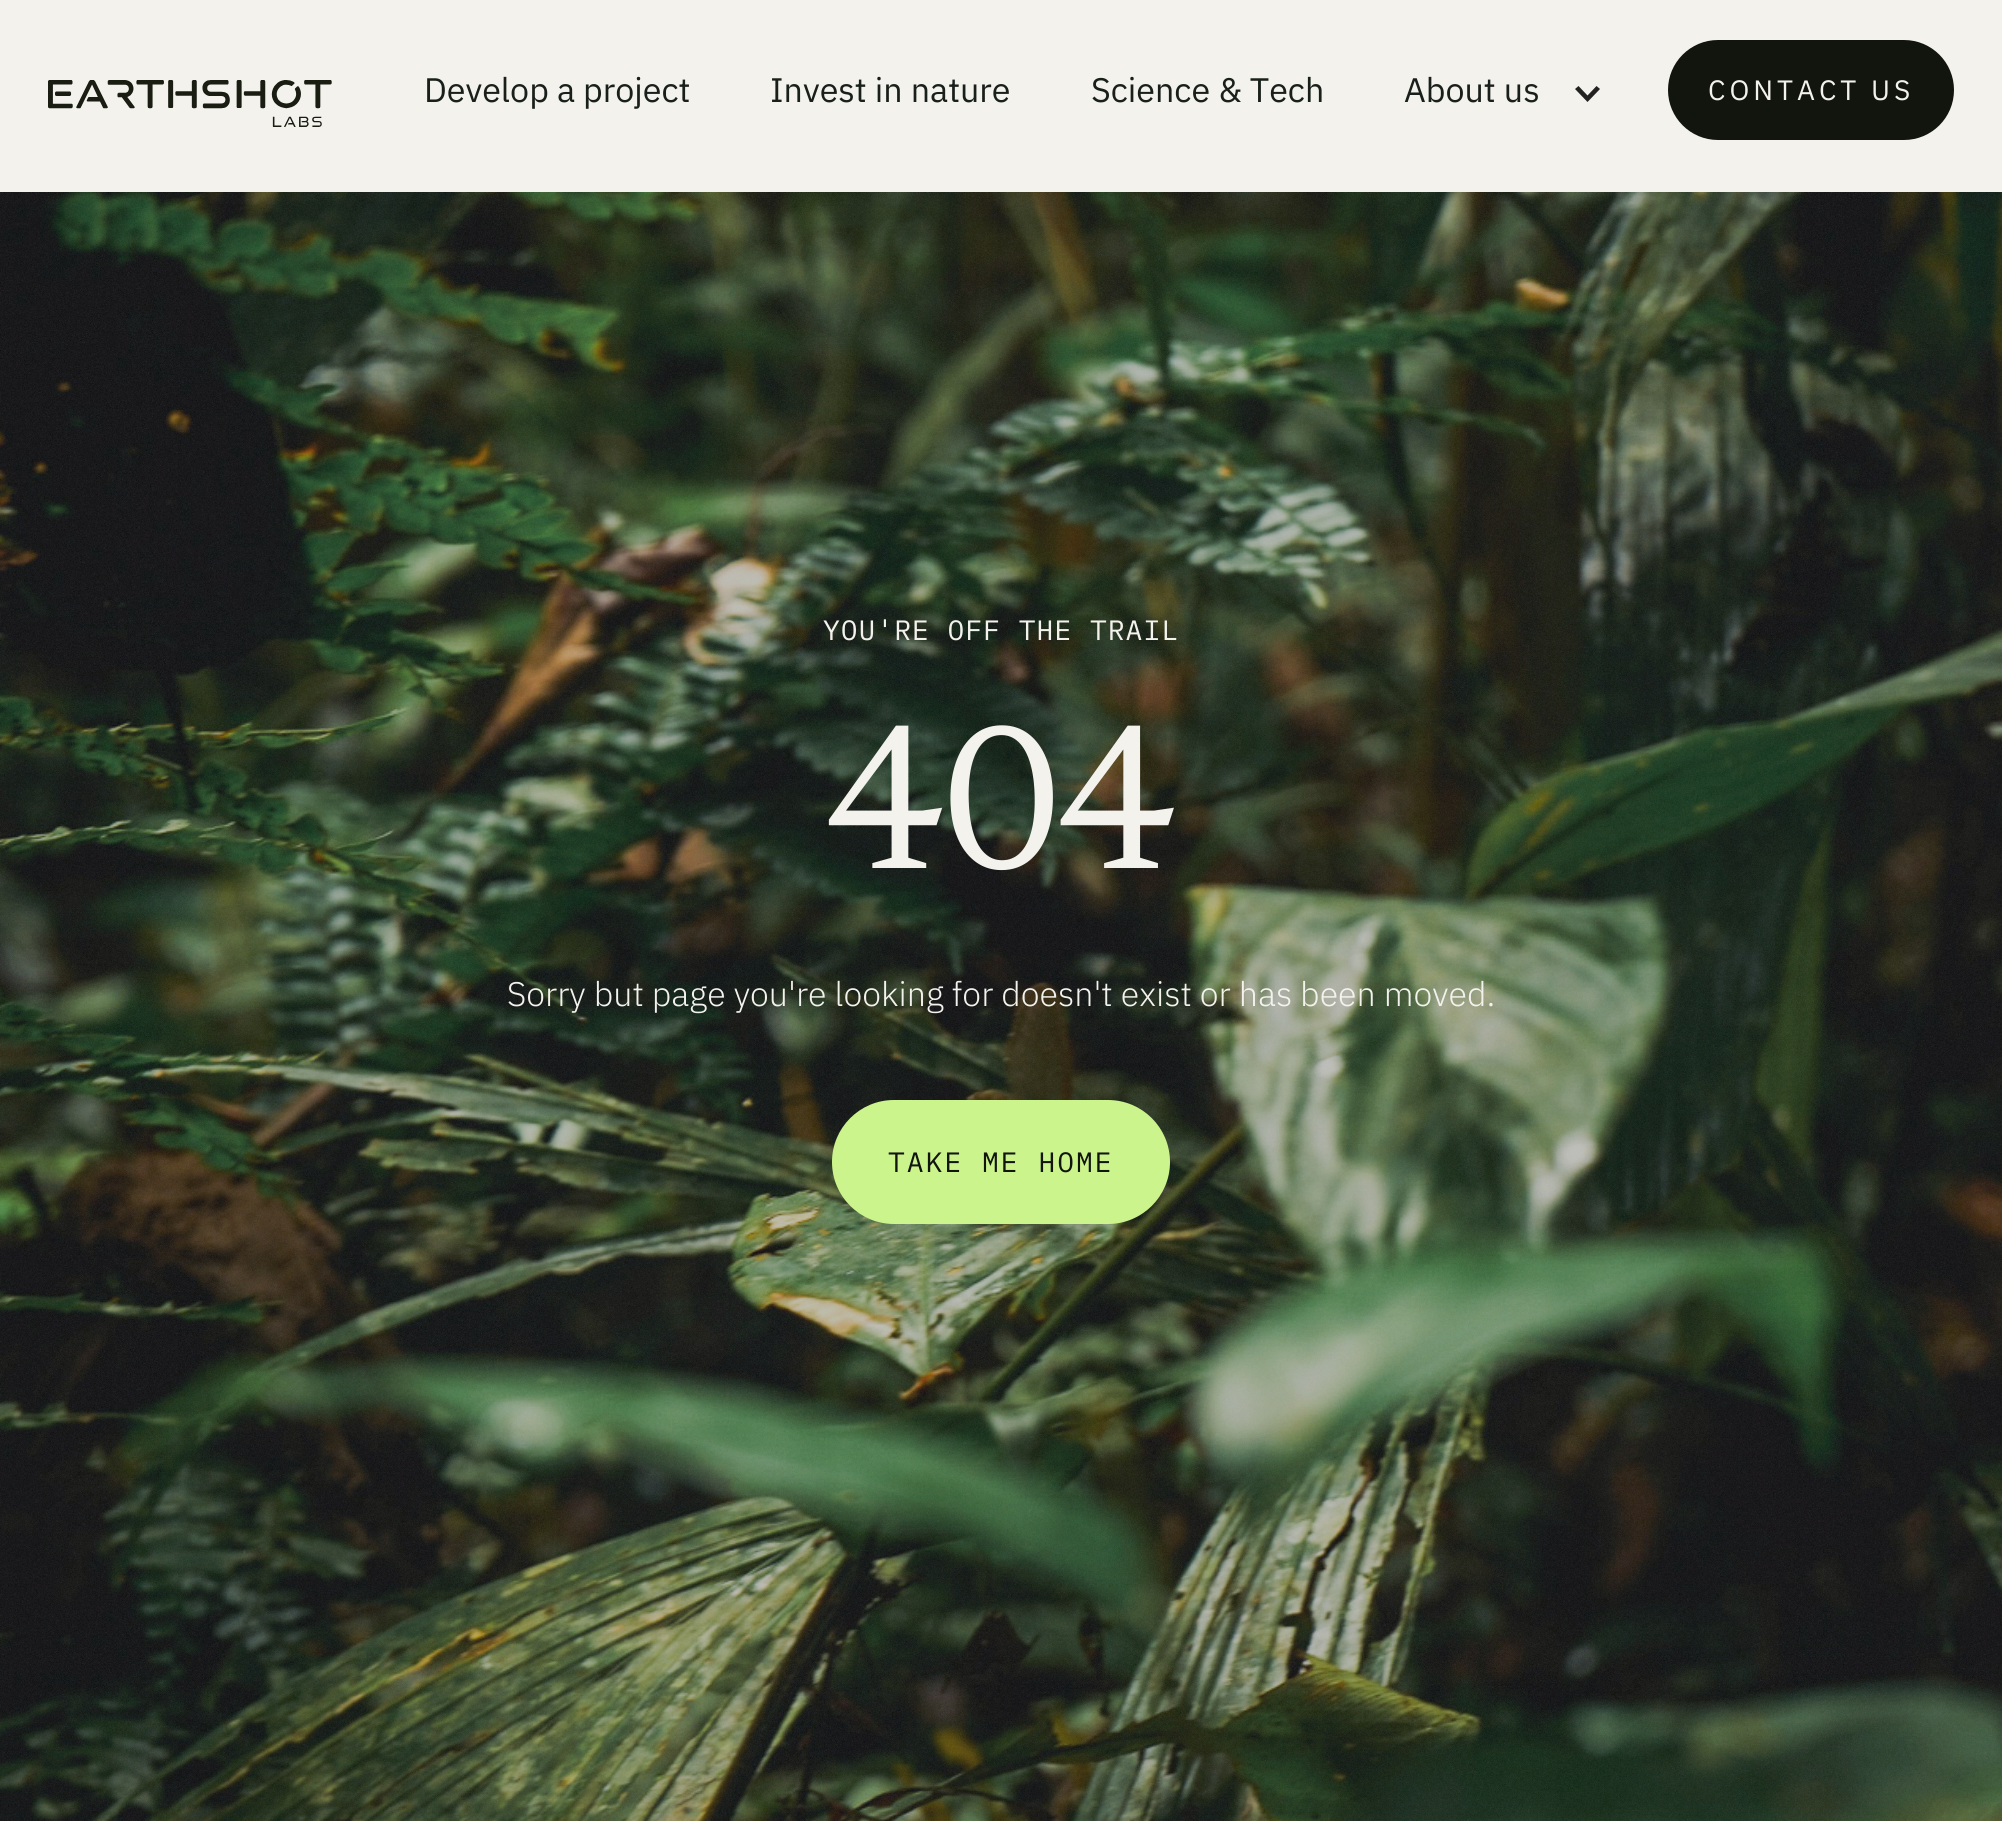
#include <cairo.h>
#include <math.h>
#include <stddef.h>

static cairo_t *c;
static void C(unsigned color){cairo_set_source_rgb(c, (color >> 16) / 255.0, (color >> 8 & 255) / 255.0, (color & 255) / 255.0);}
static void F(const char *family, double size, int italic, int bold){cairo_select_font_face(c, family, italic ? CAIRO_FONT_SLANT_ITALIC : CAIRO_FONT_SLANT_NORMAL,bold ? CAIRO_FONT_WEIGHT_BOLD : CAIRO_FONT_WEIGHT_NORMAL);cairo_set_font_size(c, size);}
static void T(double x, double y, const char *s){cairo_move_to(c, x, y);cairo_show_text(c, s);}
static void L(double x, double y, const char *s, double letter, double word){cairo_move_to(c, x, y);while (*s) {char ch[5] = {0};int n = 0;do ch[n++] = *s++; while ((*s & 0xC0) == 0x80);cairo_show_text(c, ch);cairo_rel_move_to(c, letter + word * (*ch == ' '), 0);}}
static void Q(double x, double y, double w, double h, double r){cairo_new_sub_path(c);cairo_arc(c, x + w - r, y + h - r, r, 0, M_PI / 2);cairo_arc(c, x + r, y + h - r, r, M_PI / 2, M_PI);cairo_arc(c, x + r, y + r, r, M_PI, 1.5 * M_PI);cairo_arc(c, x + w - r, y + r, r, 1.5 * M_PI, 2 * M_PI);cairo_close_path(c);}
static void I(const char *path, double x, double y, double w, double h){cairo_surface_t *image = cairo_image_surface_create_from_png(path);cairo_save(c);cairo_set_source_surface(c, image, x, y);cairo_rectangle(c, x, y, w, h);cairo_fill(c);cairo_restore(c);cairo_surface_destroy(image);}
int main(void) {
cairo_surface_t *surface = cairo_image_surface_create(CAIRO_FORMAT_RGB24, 2002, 1821);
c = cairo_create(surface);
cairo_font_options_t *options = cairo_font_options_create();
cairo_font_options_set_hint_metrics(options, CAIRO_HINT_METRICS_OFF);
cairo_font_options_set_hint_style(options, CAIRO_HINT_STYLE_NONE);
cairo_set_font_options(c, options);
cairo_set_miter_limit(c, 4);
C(0xf3f2ed);
cairo_paint(c);
I("1.png",48,80,284,47);
F("IBM Plex Sans",34,0,0);
C(0x191f1a);
T(424,102,"Develop a project");
T(770,102,"Invest in nature");
T(1091,102,"Science & Tech");
T(1404,102,"About us");
C(0x222222);
cairo_new_path(c);
cairo_move_to(c,1596.5,86);
cairo_line_to(c,1587.5,95.5);
cairo_line_to(c,1578.5,86);
cairo_line_to(c,1575,89);
cairo_line_to(c,1587.5,102);
cairo_line_to(c,1600,89);
cairo_close_path(c);
cairo_fill(c);
C(0x12140e);
Q(1668,40,286,100,50);
cairo_fill(c);
F("IBM Plex Sans",28,0,0);
C(0xf3f2ed);
L(1708,100,"CONTACT US",4,0);
I("2.png",0,192,2002,1629);
F("IBM Plex Mono",28,0,0);
L(823,640,"YOU'RE OFF THE TRAIL",1,0);
F("Newsreader",208,0,0);
L(827,868,"404",-2,0);
F("IBM Plex Sans Light",34,0,0);
T(507,1006,"Sorry but page you're looking for doesn't exist or has been moved.");
C(0xcbf58c);
Q(832,1100,338,124,62);
cairo_fill(c);
F("IBM Plex Mono",28,0,0);
C(0x12140e);
L(888,1172,"TAKE ME HOME",2,0);
cairo_surface_write_to_png(surface, "o.png");
cairo_font_options_destroy(options);
cairo_destroy(c);
cairo_surface_destroy(surface);
return 0;
}
